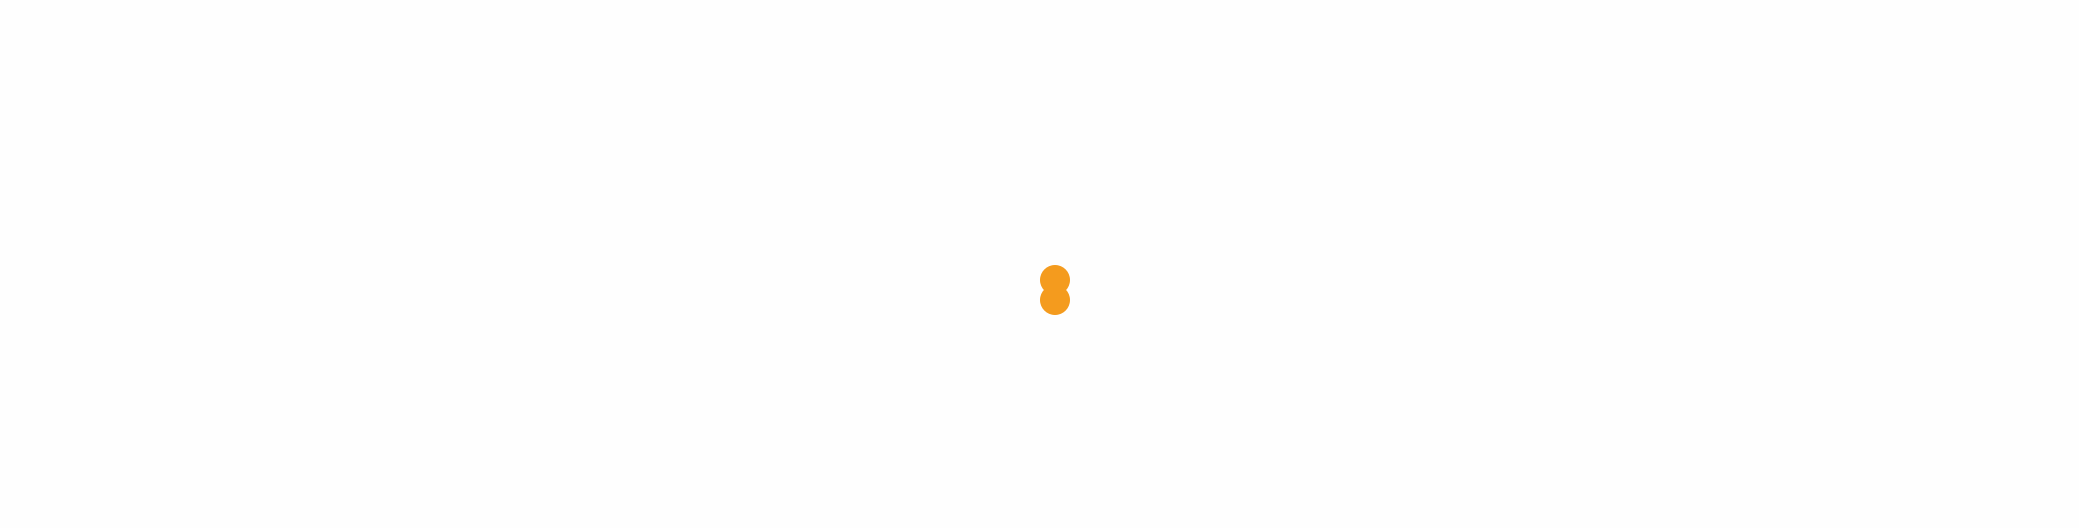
#include <cairo.h>
#include <math.h>
#include <stddef.h>

static cairo_t *c;
static void C(unsigned color){cairo_set_source_rgb(c, (color >> 16) / 255.0, (color >> 8 & 255) / 255.0, (color & 255) / 255.0);}
int main(void) {
cairo_surface_t *surface = cairo_image_surface_create(CAIRO_FORMAT_RGB24, 2079, 528);
c = cairo_create(surface);
cairo_font_options_t *options = cairo_font_options_create();
cairo_font_options_set_hint_metrics(options, CAIRO_HINT_METRICS_OFF);
cairo_font_options_set_hint_style(options, CAIRO_HINT_STYLE_NONE);
cairo_set_font_options(c, options);
cairo_set_miter_limit(c, 4);
C(0xfefefe);
cairo_paint(c);
C(0xf49b1e);
cairo_arc(c,1055,280,15,0,2 * M_PI);
cairo_fill(c);
cairo_arc(c,1055,300,15,0,2 * M_PI);
cairo_fill(c);
cairo_surface_write_to_png(surface, "o.png");
cairo_font_options_destroy(options);
cairo_destroy(c);
cairo_surface_destroy(surface);
return 0;
}
